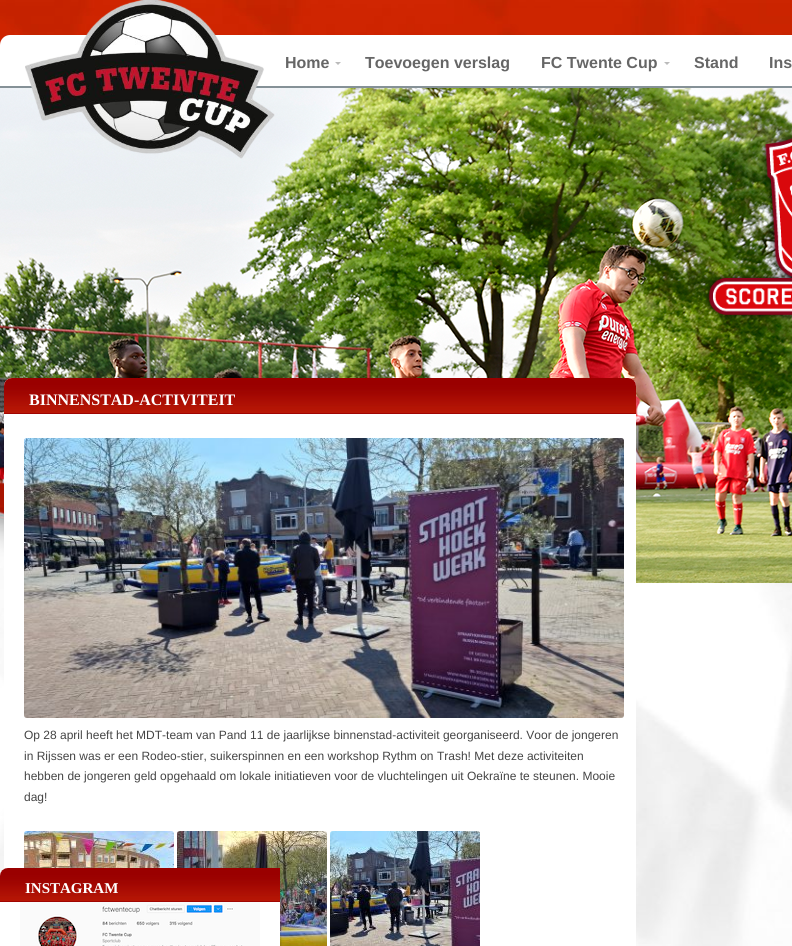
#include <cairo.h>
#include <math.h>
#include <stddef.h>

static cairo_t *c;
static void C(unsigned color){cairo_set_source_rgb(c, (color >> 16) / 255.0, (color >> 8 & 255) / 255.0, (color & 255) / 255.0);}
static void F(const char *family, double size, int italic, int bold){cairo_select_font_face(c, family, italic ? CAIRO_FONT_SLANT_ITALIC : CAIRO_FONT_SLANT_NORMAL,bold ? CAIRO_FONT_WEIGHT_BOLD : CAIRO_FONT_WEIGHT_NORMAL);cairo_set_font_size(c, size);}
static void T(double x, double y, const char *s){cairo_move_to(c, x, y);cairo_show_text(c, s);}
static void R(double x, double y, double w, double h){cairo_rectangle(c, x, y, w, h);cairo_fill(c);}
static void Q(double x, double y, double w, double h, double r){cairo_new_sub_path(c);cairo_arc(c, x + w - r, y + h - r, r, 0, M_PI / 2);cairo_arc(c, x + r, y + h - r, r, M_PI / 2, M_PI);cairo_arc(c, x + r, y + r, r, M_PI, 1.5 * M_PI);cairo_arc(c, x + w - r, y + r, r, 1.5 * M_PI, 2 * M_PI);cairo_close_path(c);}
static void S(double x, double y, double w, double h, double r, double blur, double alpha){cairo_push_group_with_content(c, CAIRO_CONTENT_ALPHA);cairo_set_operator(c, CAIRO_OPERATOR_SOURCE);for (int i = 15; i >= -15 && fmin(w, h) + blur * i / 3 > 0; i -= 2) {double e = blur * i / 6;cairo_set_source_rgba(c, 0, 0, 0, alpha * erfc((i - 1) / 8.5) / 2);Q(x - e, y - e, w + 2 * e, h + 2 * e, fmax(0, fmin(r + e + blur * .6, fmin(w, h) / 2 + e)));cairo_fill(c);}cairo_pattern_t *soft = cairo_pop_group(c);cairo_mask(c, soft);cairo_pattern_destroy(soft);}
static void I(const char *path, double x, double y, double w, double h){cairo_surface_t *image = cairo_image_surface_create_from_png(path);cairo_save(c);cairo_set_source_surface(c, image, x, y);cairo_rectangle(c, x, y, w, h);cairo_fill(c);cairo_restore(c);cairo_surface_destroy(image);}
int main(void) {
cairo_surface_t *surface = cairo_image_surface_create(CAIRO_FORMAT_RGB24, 792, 946);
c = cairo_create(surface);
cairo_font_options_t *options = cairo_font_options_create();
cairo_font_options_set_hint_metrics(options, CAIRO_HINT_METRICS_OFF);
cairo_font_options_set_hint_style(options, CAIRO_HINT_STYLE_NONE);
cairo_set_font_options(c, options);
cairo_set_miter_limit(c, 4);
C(0xffffff);
cairo_paint(c);
I("1.png",0,0,792,946);
I("2.png",0,88,792,495);
C(0xffffff);
cairo_new_path(c);
cairo_move_to(c,10,35);
cairo_line_to(c,792,35);
cairo_line_to(c,792,88);
cairo_line_to(c,0,88);
cairo_line_to(c,0,45);
cairo_curve_to(c,0,39.5,4.5,35,10,35);
cairo_close_path(c);
cairo_fill(c);
C(0x859197);
R(0,86,792,2);
I("3.png",25,0,250,159);
F("Liberation Sans",16,0,1);
C(0x666666);
T(285,68,"Home");
C(0xbbbbbb);
cairo_new_path(c);
cairo_move_to(c,335,62);
cairo_line_to(c,341,62);
cairo_line_to(c,338,65);
cairo_close_path(c);
cairo_fill(c);
C(0x666666);
T(365,68,"Toevoegen verslag");
T(541,68,"FC Twente Cup");
C(0xbbbbbb);
cairo_new_path(c);
cairo_move_to(c,664,62);
cairo_line_to(c,670,62);
cairo_line_to(c,667,65);
cairo_close_path(c);
cairo_fill(c);
C(0x666666);
T(694,68,"Stand");
T(769,68,"Ins");
I("4.png",704,132,88,189);
C(0xffffff);
cairo_new_path(c);
cairo_move_to(c,12,378);
cairo_line_to(c,628,378);
cairo_curve_to(c,632.5,378,636,381.5,636,386);
cairo_line_to(c,636,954);
cairo_line_to(c,4,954);
cairo_line_to(c,4,386);
cairo_curve_to(c,4,381.5,7.5,378,12,378);
cairo_close_path(c);
cairo_fill(c);
I("5.png",4,378,632,35);
C(0xa00501);
R(4,413,632,1);
F("Liberation Serif",16,0,1);
C(0xffffff);
T(29,405,"BINNENSTAD-ACTIVITEIT");
I("6.png",24,438,600,280);
F("Liberation Sans",12,0,0);
C(0x444444);
T(24,739,"Op 28 april heeft het MDT-team van Pand 11 de jaarlijkse binnenstad-activiteit georganiseerd. Voor de jongeren");
T(24,760,"in Rijssen was er een Rodeo-stier, suikerspinnen en een workshop Rythm on Trash! Met deze activiteiten");
T(24,780,"hebben de jongeren geld opgehaald om lokale initiatieven voor de vluchtelingen uit Oekraïne te steunen. Mooie");
T(24,801,"dag!");
I("7.png",24,831,150,37);
I("8.png",177,831,150,115);
I("9.png",330,831,150,115);
cairo_save(c);
cairo_rectangle(c,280,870,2,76);
cairo_clip(c);
C(0x323232);
S(1,869,280,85,5,1,.2);
cairo_restore(c);
C(0xffffff);
cairo_new_path(c);
cairo_move_to(c,8,868);
cairo_line_to(c,280,868);
cairo_line_to(c,280,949);
cairo_curve_to(c,280,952,278,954,275,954);
cairo_line_to(c,5,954);
cairo_curve_to(c,2,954,0,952,0,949);
cairo_line_to(c,0,876);
cairo_curve_to(c,0,871.5,3.5,868,8,868);
cairo_close_path(c);
cairo_fill(c);
I("10.png",0,868,280,33);
C(0xa00501);
R(0,901,280,1);
F("Liberation Serif",15,0,1);
C(0xffffff);
T(25,893,"INSTAGRAM");
I("11.png",20,902,240,44);
cairo_surface_write_to_png(surface, "o.png");
cairo_font_options_destroy(options);
cairo_destroy(c);
cairo_surface_destroy(surface);
return 0;
}
